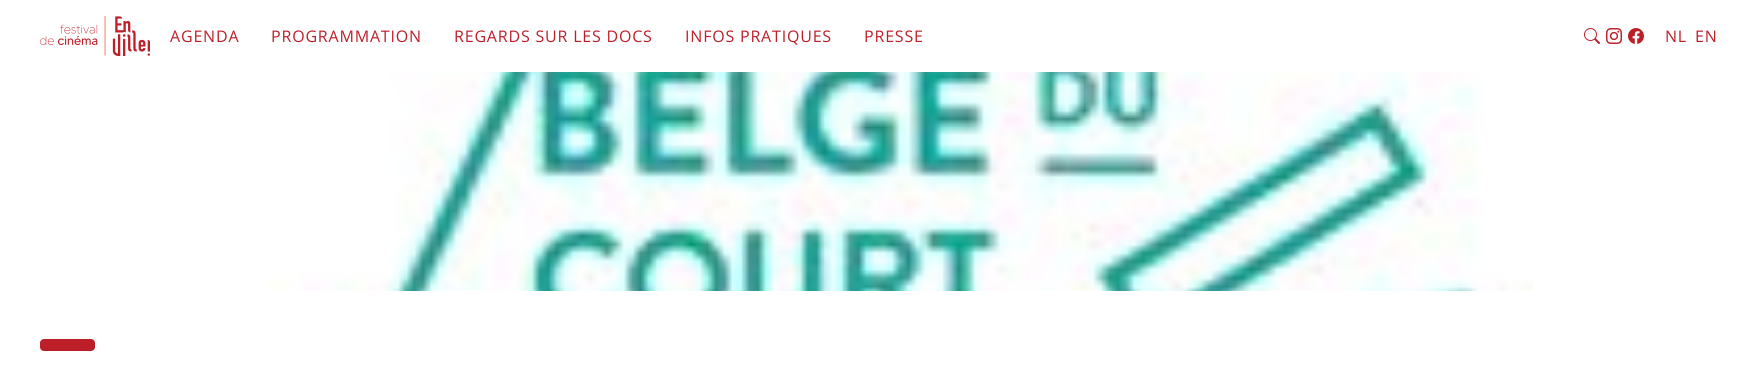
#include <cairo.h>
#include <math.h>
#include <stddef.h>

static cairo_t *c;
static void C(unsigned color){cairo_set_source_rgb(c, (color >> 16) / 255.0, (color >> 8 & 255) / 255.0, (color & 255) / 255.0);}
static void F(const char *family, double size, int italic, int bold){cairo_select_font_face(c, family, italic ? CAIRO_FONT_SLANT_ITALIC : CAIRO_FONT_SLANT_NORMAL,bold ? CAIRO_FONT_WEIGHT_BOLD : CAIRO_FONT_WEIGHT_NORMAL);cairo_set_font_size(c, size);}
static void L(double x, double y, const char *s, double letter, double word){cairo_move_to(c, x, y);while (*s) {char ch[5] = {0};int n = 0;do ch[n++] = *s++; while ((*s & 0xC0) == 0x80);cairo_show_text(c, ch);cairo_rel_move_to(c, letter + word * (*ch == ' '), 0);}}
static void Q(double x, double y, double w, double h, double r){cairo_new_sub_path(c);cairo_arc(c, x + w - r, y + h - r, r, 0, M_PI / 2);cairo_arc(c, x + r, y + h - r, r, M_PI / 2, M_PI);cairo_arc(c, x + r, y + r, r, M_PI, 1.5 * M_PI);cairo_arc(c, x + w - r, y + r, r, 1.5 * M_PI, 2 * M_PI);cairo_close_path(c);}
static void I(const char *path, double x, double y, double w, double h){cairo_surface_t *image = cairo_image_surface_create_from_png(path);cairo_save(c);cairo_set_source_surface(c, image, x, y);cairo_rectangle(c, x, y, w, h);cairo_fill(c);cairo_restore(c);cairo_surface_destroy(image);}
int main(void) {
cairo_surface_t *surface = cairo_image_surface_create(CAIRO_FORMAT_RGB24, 1758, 365);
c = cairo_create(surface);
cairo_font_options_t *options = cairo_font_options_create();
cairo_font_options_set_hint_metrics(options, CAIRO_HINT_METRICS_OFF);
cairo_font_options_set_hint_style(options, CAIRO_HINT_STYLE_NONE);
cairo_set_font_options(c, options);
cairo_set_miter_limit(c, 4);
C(0xffffff);
cairo_paint(c);
I("1.png",40,16,110,40);
F("Open Sans",16,0,0);
C(0xbd1f29);
L(170,42,"AGENDA",.8,0);
L(271,42,"PROGRAMMATION",.8,0);
L(454,42,"REGARDS SUR LES DOCS",.8,0);
L(685,42,"INFOS PRATIQUES",.8,0);
L(864,42,"PRESSE",.8,0);
I("2.png",1584,28,16,16);
I("3.png",1606,28,16,16);
I("4.png",1628,28,16,16);
L(1665,42,"NL",.8,0);
L(1695,42,"EN",.8,0);
I("5.png",268,72,1266,219);
Q(40,339,55,12,4);
cairo_fill(c);
cairo_surface_write_to_png(surface, "o.png");
cairo_font_options_destroy(options);
cairo_destroy(c);
cairo_surface_destroy(surface);
return 0;
}
